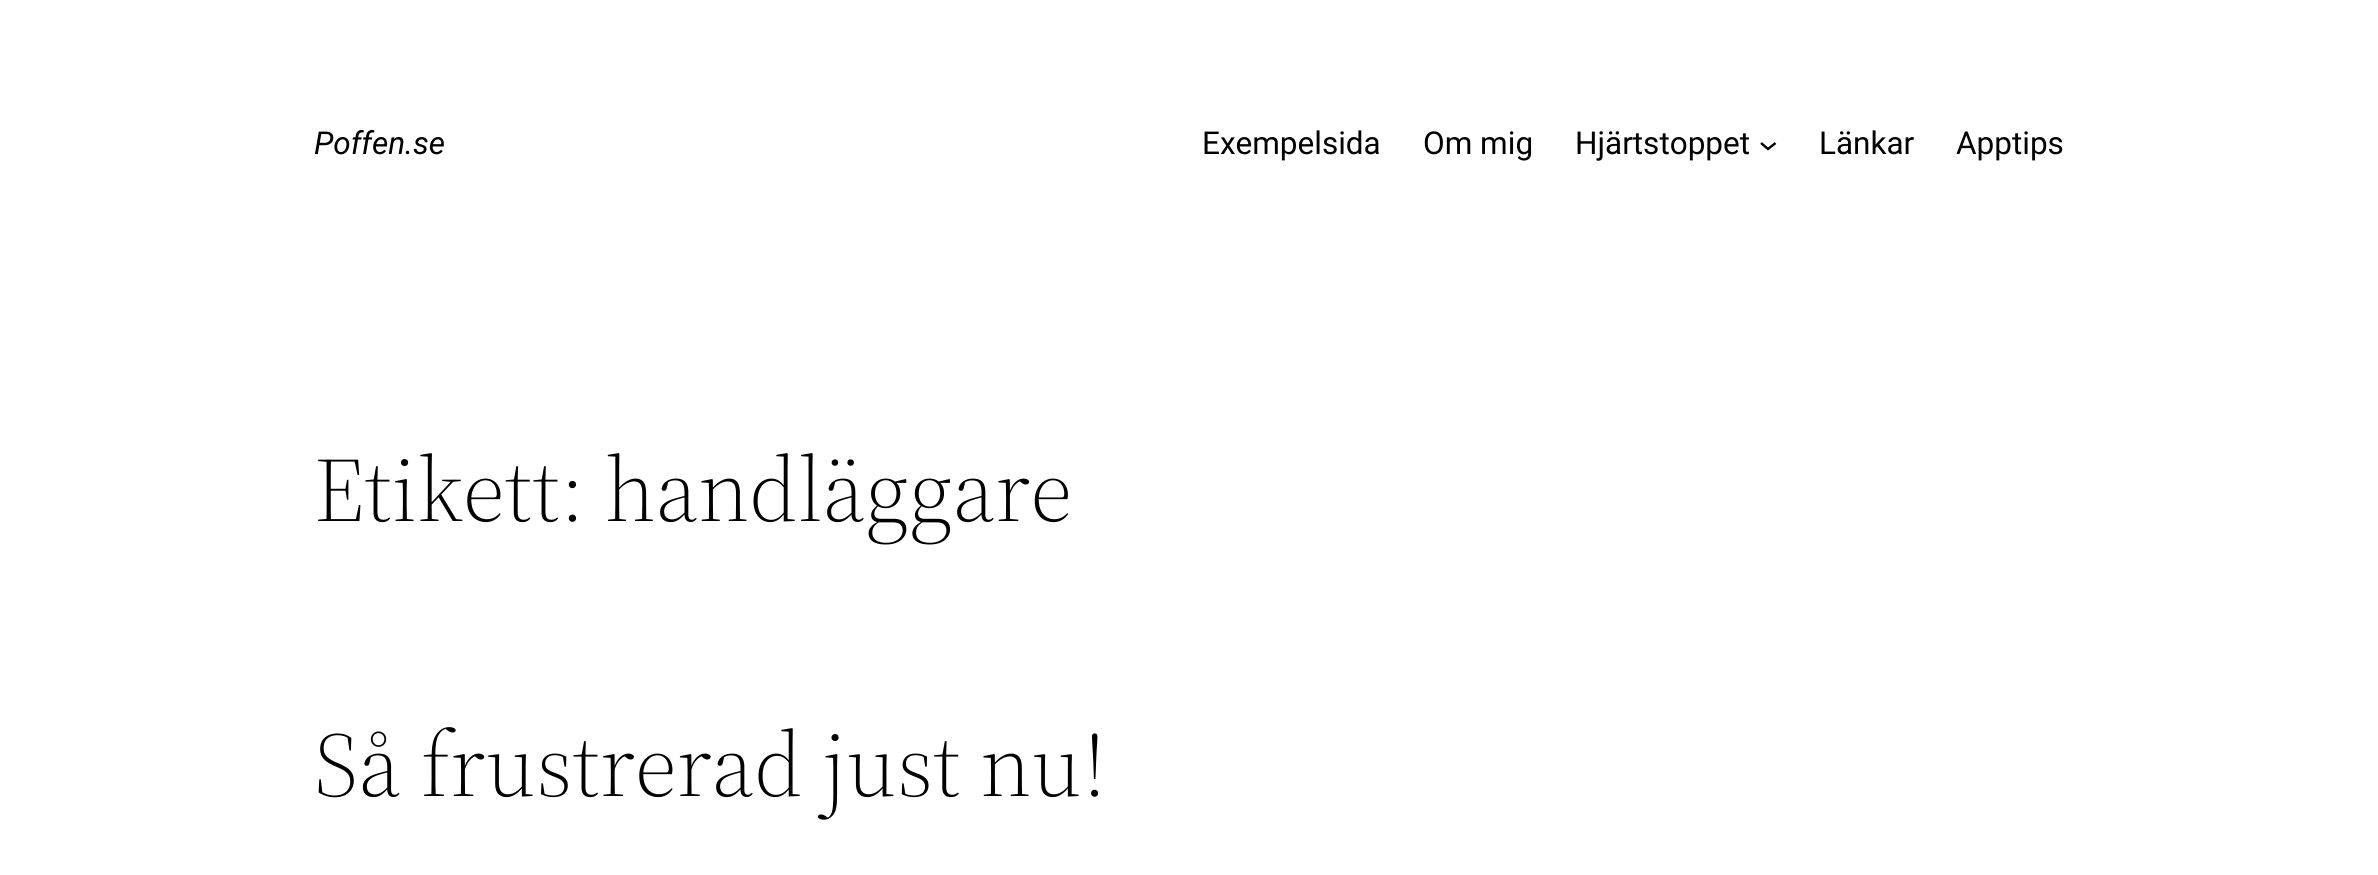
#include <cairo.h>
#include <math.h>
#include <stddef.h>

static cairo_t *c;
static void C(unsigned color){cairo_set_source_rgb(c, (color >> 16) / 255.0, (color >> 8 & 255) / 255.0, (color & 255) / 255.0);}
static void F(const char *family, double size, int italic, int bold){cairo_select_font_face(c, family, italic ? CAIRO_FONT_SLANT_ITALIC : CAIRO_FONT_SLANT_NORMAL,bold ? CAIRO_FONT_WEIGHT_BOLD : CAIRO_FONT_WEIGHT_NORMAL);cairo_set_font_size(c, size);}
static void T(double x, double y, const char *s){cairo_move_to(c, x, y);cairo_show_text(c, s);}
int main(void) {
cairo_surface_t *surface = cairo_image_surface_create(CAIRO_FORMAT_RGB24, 2378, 875);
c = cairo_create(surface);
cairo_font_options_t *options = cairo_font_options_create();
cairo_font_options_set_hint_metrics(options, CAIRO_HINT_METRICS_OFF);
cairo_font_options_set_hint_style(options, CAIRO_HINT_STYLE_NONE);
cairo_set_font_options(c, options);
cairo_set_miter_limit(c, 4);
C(0xffffff);
cairo_paint(c);
F("Roboto",31.5,1,0);
C(0x000000);
T(314,154,"Poffen.se");
F("Roboto",31.5,0,0);
T(1202,154,"Exempelsida");
T(1423,154,"Om mig");
T(1575,154,"Hjärtstoppet");
cairo_new_path(c);
cairo_move_to(c,1761,143);
cairo_line_to(c,1768,149);
cairo_line_to(c,1775.5,143);
cairo_set_line_width(c,2.4);
cairo_stroke(c);
T(1819,154,"Länkar");
T(1956,154,"Apptips");
F("Source Serif 4 Light",91,0,0);
T(314,521,"Etikett: handläggare");
T(314,796,"Så frustrerad just nu!");
cairo_surface_write_to_png(surface, "o.png");
cairo_font_options_destroy(options);
cairo_destroy(c);
cairo_surface_destroy(surface);
return 0;
}
